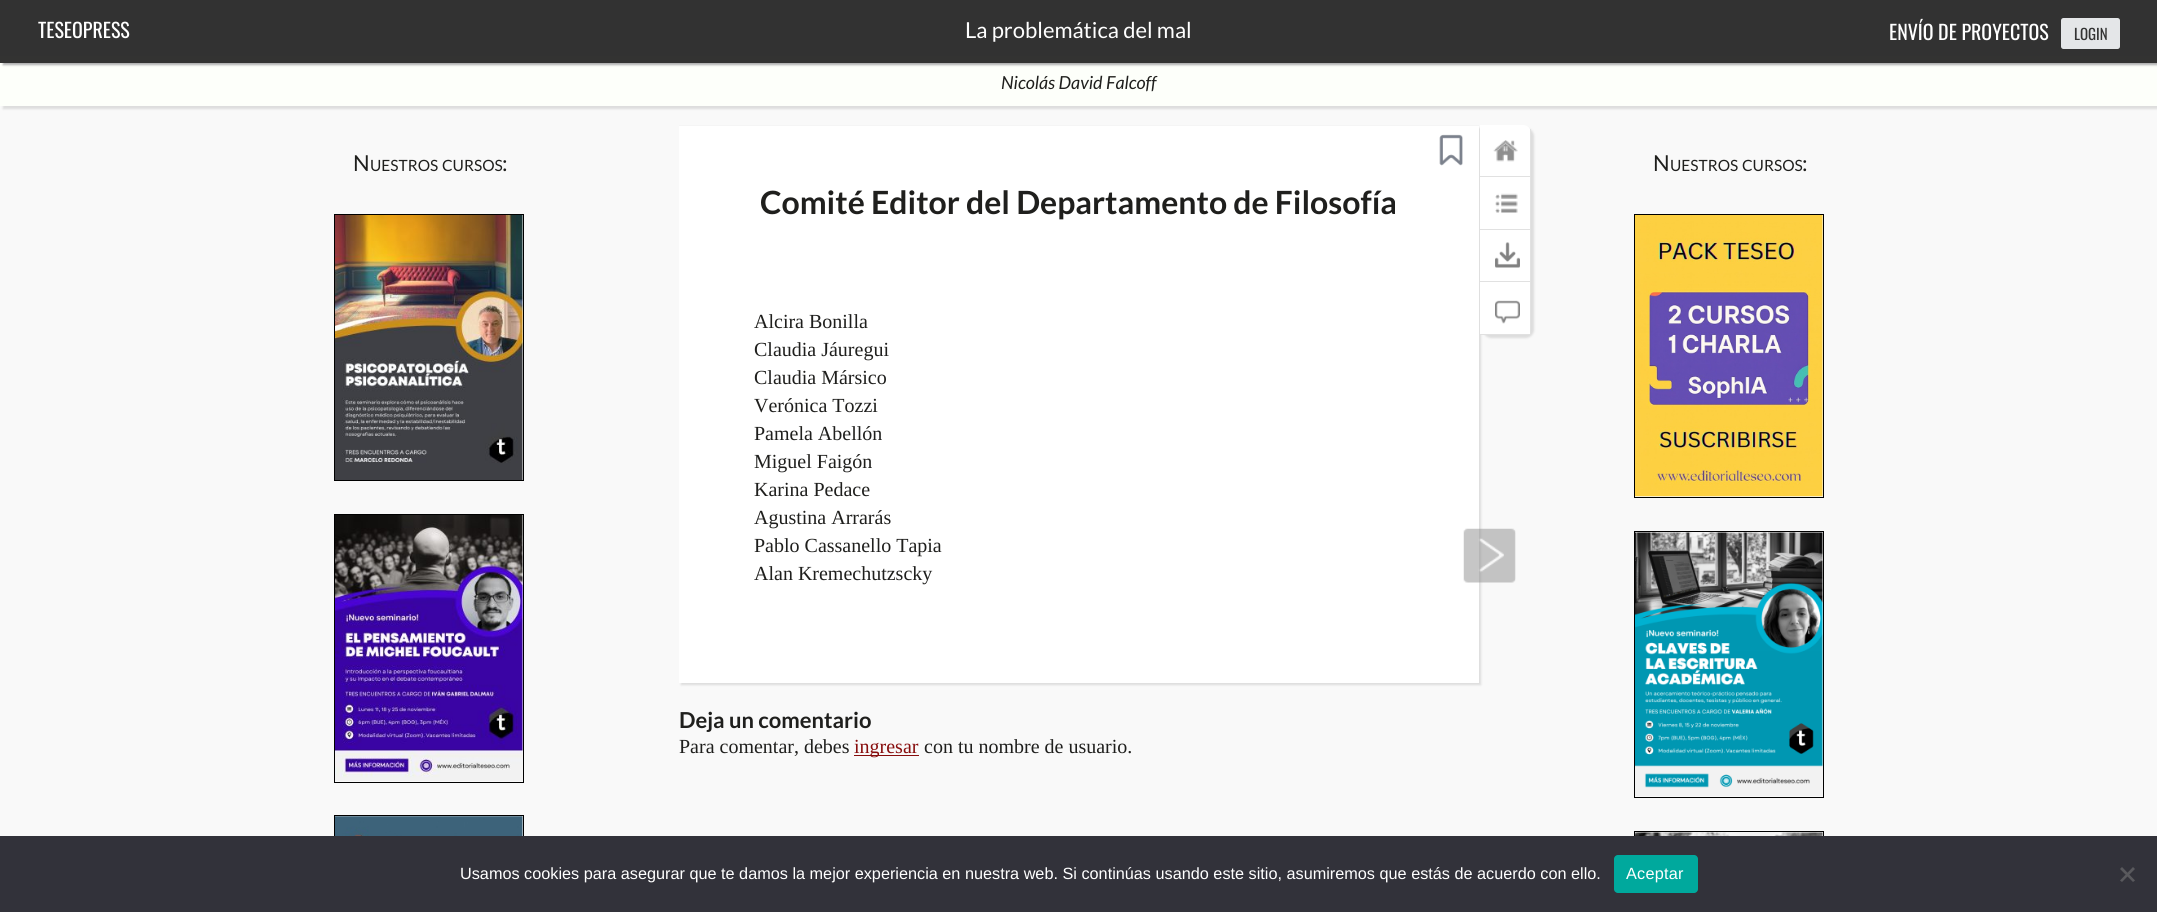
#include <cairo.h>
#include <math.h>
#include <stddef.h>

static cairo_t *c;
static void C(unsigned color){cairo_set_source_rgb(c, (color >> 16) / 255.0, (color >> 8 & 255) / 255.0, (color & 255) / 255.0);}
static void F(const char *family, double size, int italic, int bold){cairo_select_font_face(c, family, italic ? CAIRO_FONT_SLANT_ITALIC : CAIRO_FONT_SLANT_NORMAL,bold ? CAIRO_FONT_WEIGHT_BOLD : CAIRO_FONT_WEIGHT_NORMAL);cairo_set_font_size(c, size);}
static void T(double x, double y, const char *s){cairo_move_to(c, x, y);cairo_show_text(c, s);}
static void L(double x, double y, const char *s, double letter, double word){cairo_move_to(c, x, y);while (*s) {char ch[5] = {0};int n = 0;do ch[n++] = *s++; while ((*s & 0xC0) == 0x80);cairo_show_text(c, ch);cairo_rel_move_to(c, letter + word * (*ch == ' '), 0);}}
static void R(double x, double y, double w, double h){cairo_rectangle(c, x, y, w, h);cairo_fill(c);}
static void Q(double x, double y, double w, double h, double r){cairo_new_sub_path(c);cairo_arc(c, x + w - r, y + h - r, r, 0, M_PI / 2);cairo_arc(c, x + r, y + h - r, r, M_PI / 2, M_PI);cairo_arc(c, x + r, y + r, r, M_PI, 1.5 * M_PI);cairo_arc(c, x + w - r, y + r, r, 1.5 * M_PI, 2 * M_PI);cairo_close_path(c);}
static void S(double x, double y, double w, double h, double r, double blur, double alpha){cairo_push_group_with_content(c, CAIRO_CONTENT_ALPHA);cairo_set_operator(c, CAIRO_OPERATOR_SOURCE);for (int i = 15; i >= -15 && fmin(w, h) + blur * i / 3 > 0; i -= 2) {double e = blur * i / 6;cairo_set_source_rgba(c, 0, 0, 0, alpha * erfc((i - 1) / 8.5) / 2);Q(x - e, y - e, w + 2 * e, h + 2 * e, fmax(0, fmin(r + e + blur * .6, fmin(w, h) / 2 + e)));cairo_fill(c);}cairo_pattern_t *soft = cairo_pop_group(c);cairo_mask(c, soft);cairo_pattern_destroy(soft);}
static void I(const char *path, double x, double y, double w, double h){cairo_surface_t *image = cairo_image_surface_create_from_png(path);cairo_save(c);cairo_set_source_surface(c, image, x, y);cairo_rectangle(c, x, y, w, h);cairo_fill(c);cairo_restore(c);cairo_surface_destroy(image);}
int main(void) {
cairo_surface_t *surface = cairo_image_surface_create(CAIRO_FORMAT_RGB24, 2157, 912);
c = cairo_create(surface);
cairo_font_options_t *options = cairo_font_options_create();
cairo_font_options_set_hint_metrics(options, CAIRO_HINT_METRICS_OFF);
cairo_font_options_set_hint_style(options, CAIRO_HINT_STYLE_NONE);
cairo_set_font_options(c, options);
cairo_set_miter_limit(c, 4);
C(0xf9f9f9);
cairo_paint(c);
C(0xdddddd);
S(3,59,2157,50,0,1,1);
C(0xfdfffa);
R(0,56,2157,50);
cairo_save(c);
cairo_set_fill_rule(c,CAIRO_FILL_RULE_EVEN_ODD);
cairo_new_path(c);
cairo_move_to(c,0,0);
cairo_line_to(c,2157,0);
cairo_line_to(c,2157,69);
cairo_line_to(c,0,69);
cairo_close_path(c);
cairo_move_to(c,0,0);
cairo_line_to(c,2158,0);
cairo_line_to(c,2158,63);
cairo_line_to(c,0,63);
cairo_close_path(c);
cairo_clip(c);
C(0xaeaeae);
S(3,3,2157,62,0,1,1);
cairo_restore(c);
cairo_set_source_rgba(c,0,0,0,0.8);
R(0,0,2157,63);
F("Oswald",20,0,0);
C(0xffffff);
T(38,38,"TESEOPRESS");
F("Lato",22,0,0);
T(965,38,"La problemática del mal");
F("Oswald",20,0,0);
T(1889,40,"ENVÍO DE PROYECTOS");
C(0xe4e6e8);
Q(2061,18,59,31,2.5);
cairo_fill(c);
F("Oswald",15,0,0);
C(0x333333);
T(2074,40,"LOGIN");
F("Lato",18,1,0);
C(0x1f1f1d);
T(1001,89,"Nicolás David Falcoff");
F("Lato",22,0,0);
T(353,171,"N");
F("Lato",15.5,0,0);
T(370,171,"UESTROS");
T(442,171,"CURSOS");
F("Lato",22,0,0);
T(502,171,":");
cairo_rectangle(c,334.5,214.5,189,266);
C(0x000000);
cairo_set_line_width(c,1);
cairo_stroke(c);
I("1.png",335,215,188,265);
cairo_rectangle(c,334.5,514.5,189,268);
cairo_stroke(c);
I("2.png",335,515,188,266);
cairo_rectangle(c,334.5,815.5,189,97);
cairo_stroke(c);
I("3.png",335,816,188,20);
C(0x1f1f1d);
T(1653,171,"N");
F("Lato",15.5,0,0);
T(1670,171,"UESTROS");
T(1742,171,"CURSOS");
F("Lato",22,0,0);
T(1802,171,":");
cairo_rectangle(c,1634.5,214.5,189,283);
C(0x000000);
cairo_stroke(c);
I("4.png",1635,215,188,282);
cairo_rectangle(c,1634.5,531.5,189,266);
cairo_stroke(c);
I("5.png",1635,532,188,264);
cairo_rectangle(c,1634.5,831.5,189,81);
cairo_stroke(c);
I("6.png",1635,832,188,4);
C(0xdddddd);
S(681,128,800,557,0,1,1);
C(0xffffff);
R(679,126,800,557);
I("7.png",1439,134,24,32);
C(0xdddddd);
S(1483,128,51,210,8,1,1);
C(0xffffff);
cairo_new_path(c);
cairo_move_to(c,1480,125);
cairo_line_to(c,1523,125);
cairo_curve_to(c,1527.5,125,1531,128.5,1531,133);
cairo_line_to(c,1531,178);
cairo_line_to(c,1480,178);
cairo_close_path(c);
cairo_fill(c);
C(0xe1e1e1);
R(1530,129,1,206);
R(1480,176,51,1);
I("8.png",1493,140,25,22);
C(0xffffff);
R(1480,178,50,51);
C(0xe1e1e1);
R(1480,229,51,1);
I("9.png",1495,193,23,20);
C(0xffffff);
R(1480,230,50,104);
C(0xe1e1e1);
R(1480,281,51,1);
I("10.png",1495,242,25,26);
R(1480,334,51,1);
I("11.png",1495,300,25,24);
C(0xf5f5f5);
R(679,125,800,1);
F("Lato",32,0,1);
C(0x1f1f1d);
T(760,214,"Comité Editor del Departamento de Filosofía");
F("Liberation Serif",20,0,0);
T(754,328,"Alcira Bonilla");
T(754,356,"Claudia Jáuregui");
T(754,384,"Claudia Mársico");
T(754,412,"Verónica Tozzi");
T(754,440,"Pamela Abellón");
T(754,468,"Miguel Faigón");
T(754,496,"Karina Pedace");
T(754,524,"Agustina Arrarás");
T(754,552,"Pablo Cassanello Tapia");
T(754,580,"Alan Kremechutzscky");
I("12.png",1463,528,53,55);
F("Lato",22,0,1);
T(679,728,"Deja un comentario");
F("Liberation Serif",20,0,0);
T(679,753,"Para comentar, debes");
C(0x870d0d);
R(854,755,65,1);
T(854,753,"ingresar");
C(0x1f1f1d);
T(924,753,"con tu nombre de usuario.");
C(0x32323a);
R(0,836,2157,76);
F("Liberation Sans",16.25,0,0);
C(0xffffff);
T(460,879,"Usamos cookies para asegurar que te damos la mejor experiencia en nuestra web. Si continúas usando este sitio, asumiremos que estás de acuerdo con ello.");
C(0x00a99d);
Q(1614,855,84,38,4);
cairo_fill(c);
C(0xffffff);
L(1626,879,"Aceptar",.25,0);
C(0x59595d);
cairo_new_path(c);
cairo_move_to(c,2133,867);
cairo_line_to(c,2135,869);
cairo_line_to(c,2122,882);
cairo_line_to(c,2120,880.5);
cairo_close_path(c);
cairo_fill(c);
cairo_new_path(c);
cairo_move_to(c,2120,869);
cairo_line_to(c,2122,867);
cairo_line_to(c,2135,880.5);
cairo_line_to(c,2133,882);
cairo_close_path(c);
cairo_fill(c);
cairo_surface_write_to_png(surface, "o.png");
cairo_font_options_destroy(options);
cairo_destroy(c);
cairo_surface_destroy(surface);
return 0;
}
